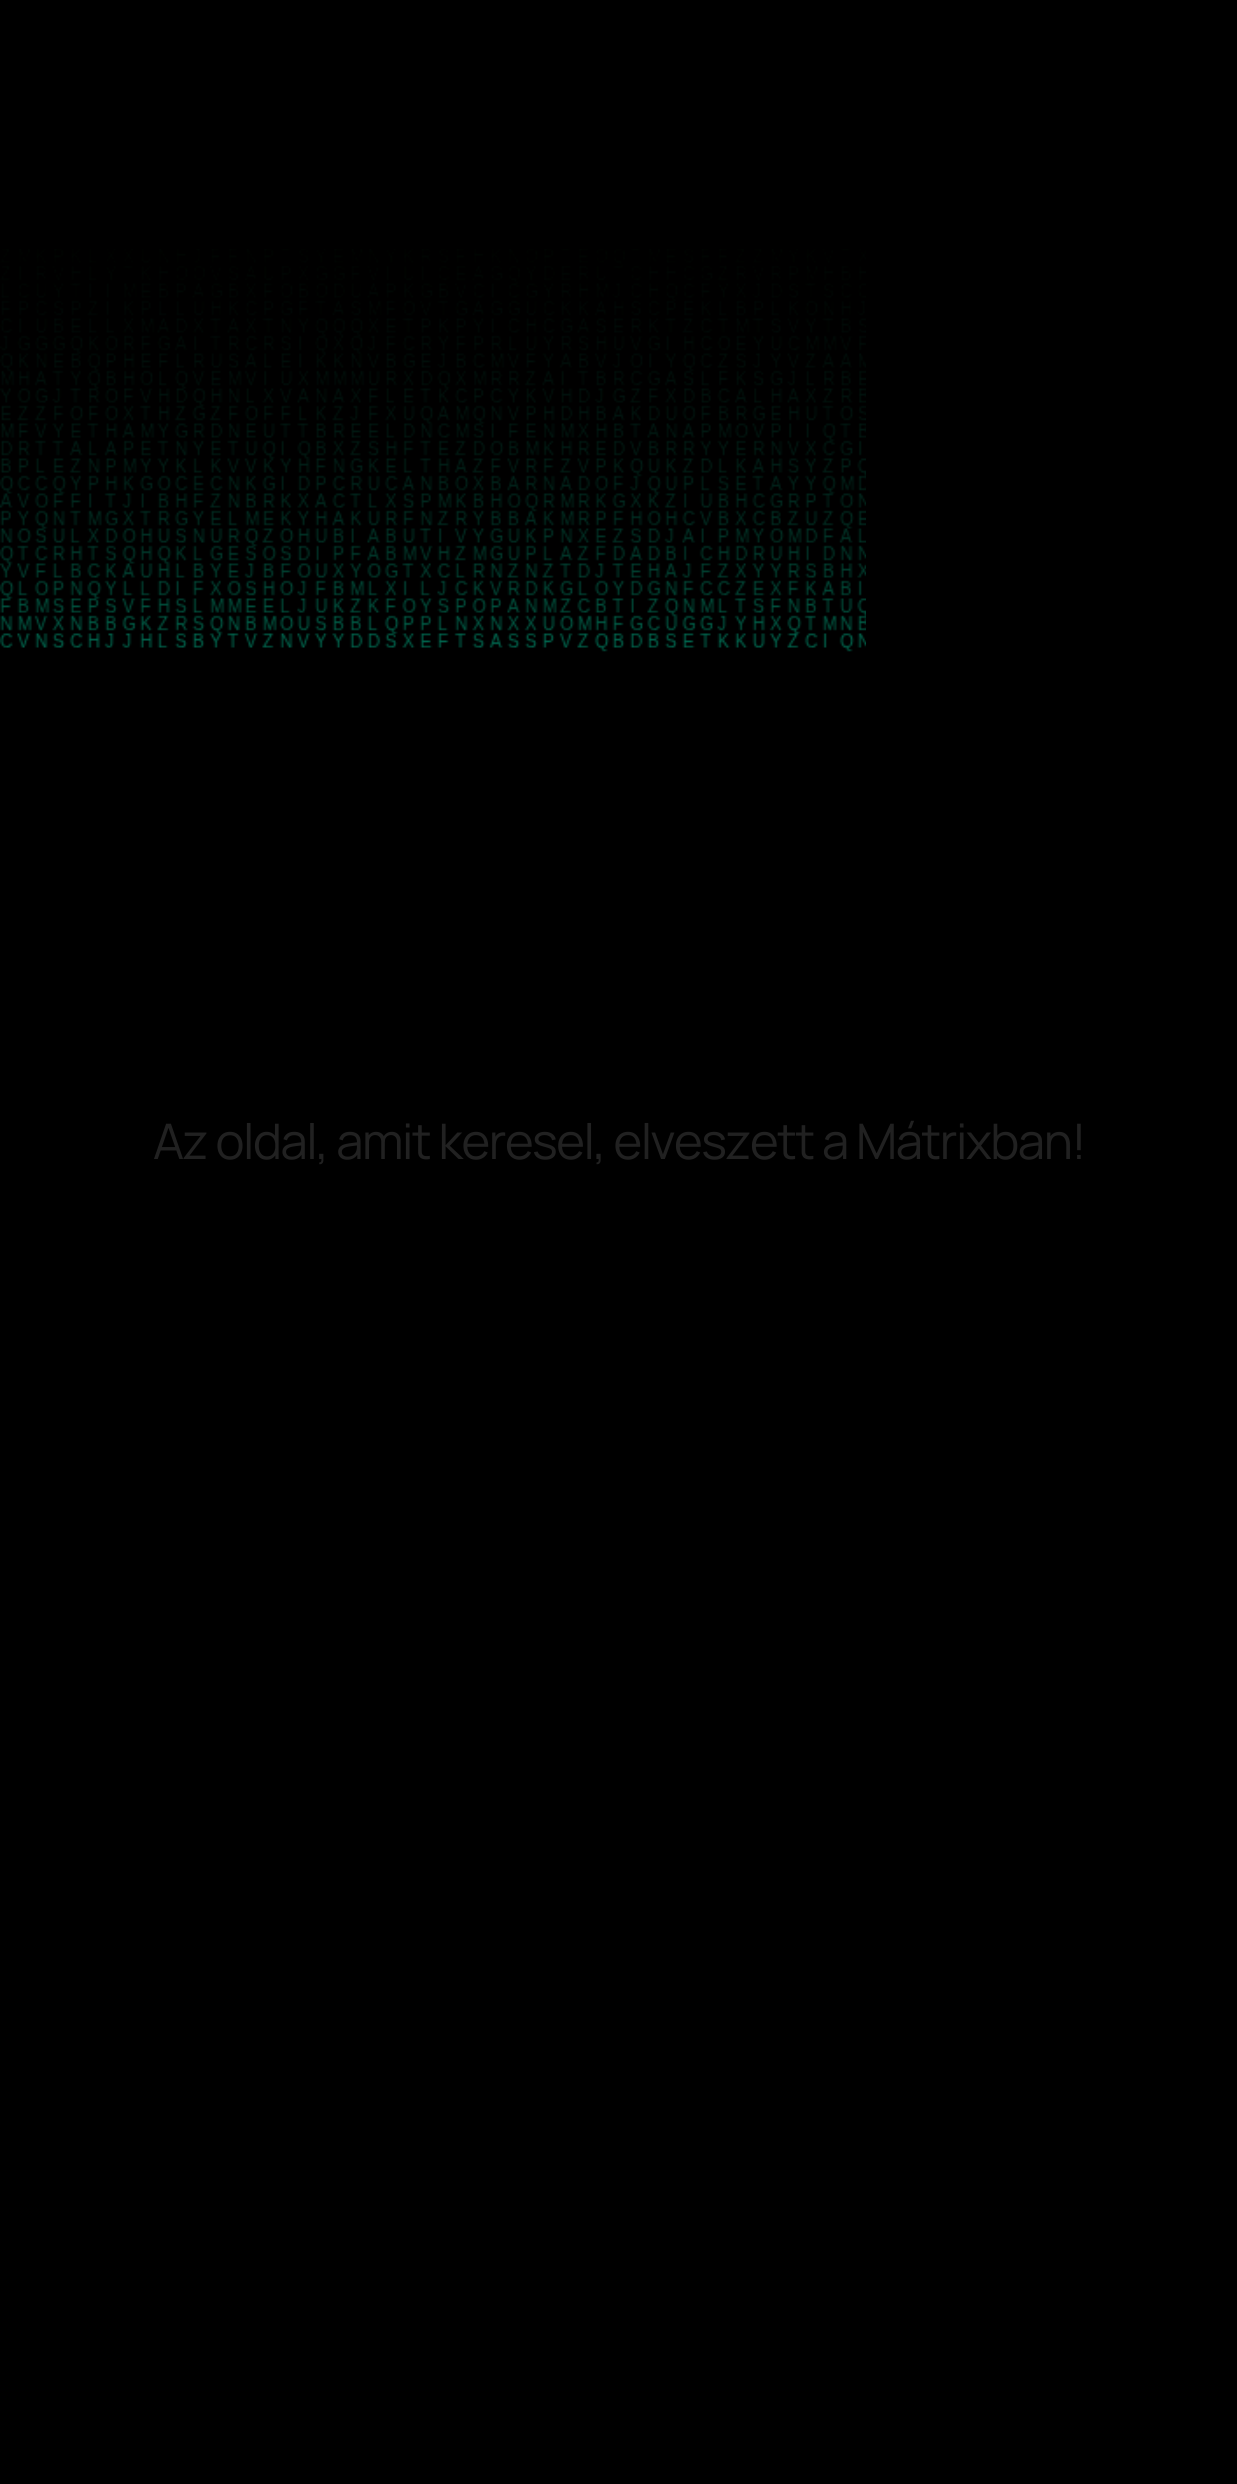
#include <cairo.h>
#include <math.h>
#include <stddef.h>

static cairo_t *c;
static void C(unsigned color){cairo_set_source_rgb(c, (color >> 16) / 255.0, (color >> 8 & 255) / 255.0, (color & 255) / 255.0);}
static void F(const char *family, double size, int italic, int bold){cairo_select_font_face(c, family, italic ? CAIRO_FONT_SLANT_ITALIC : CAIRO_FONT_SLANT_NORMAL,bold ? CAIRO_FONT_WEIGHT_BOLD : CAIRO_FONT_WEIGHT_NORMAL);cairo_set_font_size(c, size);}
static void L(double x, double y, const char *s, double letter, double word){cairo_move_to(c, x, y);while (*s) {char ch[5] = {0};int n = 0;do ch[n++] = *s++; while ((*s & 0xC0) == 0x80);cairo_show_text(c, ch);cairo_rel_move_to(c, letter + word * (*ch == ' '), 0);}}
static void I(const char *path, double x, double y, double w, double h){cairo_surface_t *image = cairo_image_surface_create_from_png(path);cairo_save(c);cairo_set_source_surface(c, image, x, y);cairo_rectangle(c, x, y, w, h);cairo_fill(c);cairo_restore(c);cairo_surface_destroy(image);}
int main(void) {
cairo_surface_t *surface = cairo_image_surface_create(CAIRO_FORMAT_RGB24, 1237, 2484);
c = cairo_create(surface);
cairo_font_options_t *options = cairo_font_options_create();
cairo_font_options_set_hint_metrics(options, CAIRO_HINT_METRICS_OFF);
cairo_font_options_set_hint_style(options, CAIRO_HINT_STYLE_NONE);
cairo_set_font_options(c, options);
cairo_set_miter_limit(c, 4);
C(0x000000);
cairo_paint(c);
I("1.png",0,249,866,403);
F("Manrope",49,0,0);
C(0x212121);
L(153,1159,"Az oldal, amit keresel, elveszett a Mátrixban!",-1.45,0);
cairo_surface_write_to_png(surface, "o.png");
cairo_font_options_destroy(options);
cairo_destroy(c);
cairo_surface_destroy(surface);
return 0;
}
